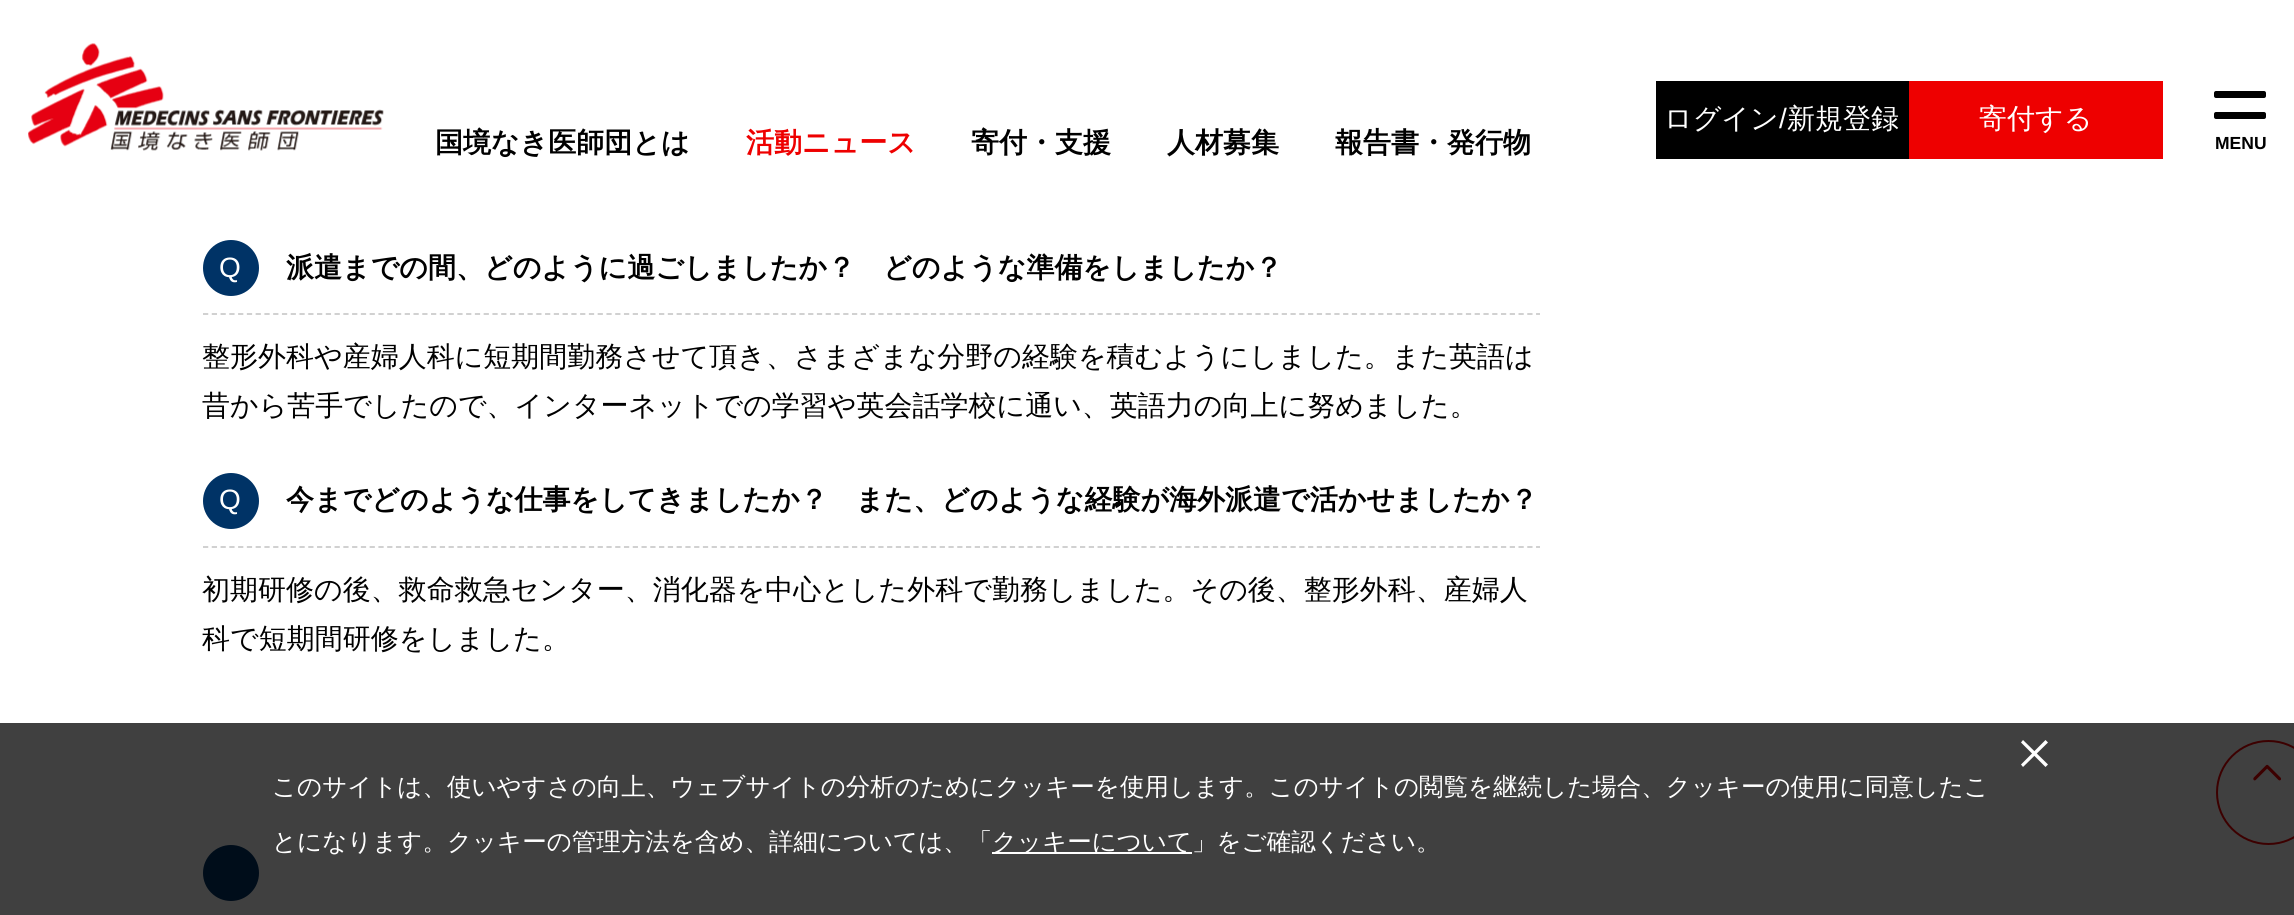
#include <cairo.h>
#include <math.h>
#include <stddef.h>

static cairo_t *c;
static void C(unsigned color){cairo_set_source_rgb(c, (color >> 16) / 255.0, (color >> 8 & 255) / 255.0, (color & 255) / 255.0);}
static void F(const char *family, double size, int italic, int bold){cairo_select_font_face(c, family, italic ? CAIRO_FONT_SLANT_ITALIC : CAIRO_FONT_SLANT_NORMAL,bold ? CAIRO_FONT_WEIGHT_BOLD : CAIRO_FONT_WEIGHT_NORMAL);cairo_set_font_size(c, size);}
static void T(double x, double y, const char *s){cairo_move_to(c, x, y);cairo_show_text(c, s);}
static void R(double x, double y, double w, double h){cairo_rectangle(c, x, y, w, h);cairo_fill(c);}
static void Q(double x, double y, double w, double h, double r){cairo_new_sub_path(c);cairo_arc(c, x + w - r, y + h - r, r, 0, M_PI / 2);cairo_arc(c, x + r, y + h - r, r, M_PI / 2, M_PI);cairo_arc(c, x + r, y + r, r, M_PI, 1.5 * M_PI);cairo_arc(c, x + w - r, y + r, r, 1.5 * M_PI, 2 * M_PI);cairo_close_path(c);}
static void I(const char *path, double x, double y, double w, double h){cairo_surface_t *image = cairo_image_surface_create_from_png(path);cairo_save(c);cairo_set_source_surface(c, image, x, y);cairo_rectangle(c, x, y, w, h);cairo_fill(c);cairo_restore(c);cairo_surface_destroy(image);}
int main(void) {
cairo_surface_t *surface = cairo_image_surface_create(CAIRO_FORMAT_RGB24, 2294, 915);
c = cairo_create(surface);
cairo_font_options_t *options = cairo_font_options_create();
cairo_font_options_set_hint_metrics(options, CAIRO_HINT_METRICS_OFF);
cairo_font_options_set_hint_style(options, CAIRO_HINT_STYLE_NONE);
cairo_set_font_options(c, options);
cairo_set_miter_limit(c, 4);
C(0xffffff);
cairo_paint(c);
I("1.png",28,43,356,108);
C(0x000000);
R(1656,81,253,78);
F("WenQuanYi Zen Hei Medium",28,0,0);
C(0xffffff);
T(1664,128,"ログイン");
F("Liberation Sans",28,0,0);
T(1779,128,"/");
F("WenQuanYi Zen Hei Medium",28,0,0);
T(1787,128,"新規登録");
C(0xee0000);
R(1909,81,254,78);
C(0xffffff);
T(1979,128,"寄付する");
F("WenQuanYi Zen Hei",28,0,1);
C(0x000000);
T(435,152,"国境なき医師団とは");
C(0xee0000);
T(746,152,"活動ニュース");
C(0x000000);
T(971,152,"寄付・支援");
T(1167,152,"人材募集");
T(1335,152,"報告書・発行物");
Q(2214,91,52,7,2);
cairo_fill(c);
Q(2214,112,52,7,2);
cairo_fill(c);
F("Liberation Sans",17.5,0,1);
T(2215,149,"MENU");
cairo_new_path(c);
cairo_move_to(c,203,314);
cairo_line_to(c,1540,314);
C(0xcccccc);
cairo_set_line_width(c,1.8);
cairo_set_dash(c,(double[]){5.25,3.52},2,0);
cairo_stroke(c);
C(0x003366);
cairo_arc(c,231,268,28,0,2 * M_PI);
cairo_fill(c);
F("Liberation Sans",28,0,0);
C(0xffffff);
T(219,277,"Q");
F("WenQuanYi Zen Hei",28,0,1);
C(0x000000);
T(286,277,"派遣までの間、どのように過ごしましたか？　どのような準備をしましたか？");
F("WenQuanYi Zen Hei Medium",28,0,0);
T(202,366,"整形外科や産婦人科に短期間勤務させて頂き、さまざまな分野の経験を積むようにしました。また英語は");
T(202,415,"昔から苦手でしたので、インターネットでの学習や英会話学校に通い、英語力の向上に努めました。");
cairo_new_path(c);
cairo_move_to(c,203,547);
cairo_line_to(c,1540,547);
C(0xcccccc);
cairo_stroke(c);
C(0x003366);
cairo_arc(c,231,501,28,0,2 * M_PI);
cairo_fill(c);
F("Liberation Sans",28,0,0);
C(0xffffff);
T(219,509,"Q");
F("WenQuanYi Zen Hei",28,0,1);
C(0x000000);
T(286,509,"今までどのような仕事をしてきましたか？　また、どのような経験が海外派遣で活かせましたか？");
F("WenQuanYi Zen Hei Medium",28,0,0);
T(202,599,"初期研修の後、救命救急センター、消化器を中心とした外科で勤務しました。その後、整形外科、産婦人");
T(202,648,"科で短期間研修をしました。");
C(0x003366);
cairo_new_path(c);
cairo_arc(c,231,873,28,0,2 * M_PI);
cairo_fill(c);
cairo_arc(c,2268.5,792.5,51.5,0,2 * M_PI);
C(0xee0000);
cairo_set_line_width(c,2);
cairo_set_dash(c,NULL,0,0);
cairo_stroke(c);
I("2.png",2253,764,28,17);
cairo_set_source_rgba(c,0,0,0,0.75);
R(0,723,2294,192);
C(0xffffff);
cairo_new_path(c);
cairo_move_to(c,2021,764.5);
cairo_line_to(c,2045.5,740);
cairo_line_to(c,2048,742.5);
cairo_line_to(c,2023,767);
cairo_close_path(c);
cairo_fill(c);
cairo_new_path(c);
cairo_move_to(c,2023,740);
cairo_line_to(c,2048,764.5);
cairo_line_to(c,2045.5,767);
cairo_line_to(c,2021,742.5);
cairo_close_path(c);
cairo_fill(c);
F("WenQuanYi Zen Hei Medium",24.5,0,0);
T(272,795,"このサイトは、使いやすさの向上、ウェブサイトの分析のためにクッキーを使用します。このサイトの閲覧を継続した場合、クッキーの使用に同意したこ");
T(272,850,"とになります。クッキーの管理方法を含め、詳細については、「");
R(992,852,200,2);
T(992,850,"クッキーについて」をご確認ください。");
cairo_surface_write_to_png(surface, "o.png");
cairo_font_options_destroy(options);
cairo_destroy(c);
cairo_surface_destroy(surface);
return 0;
}
